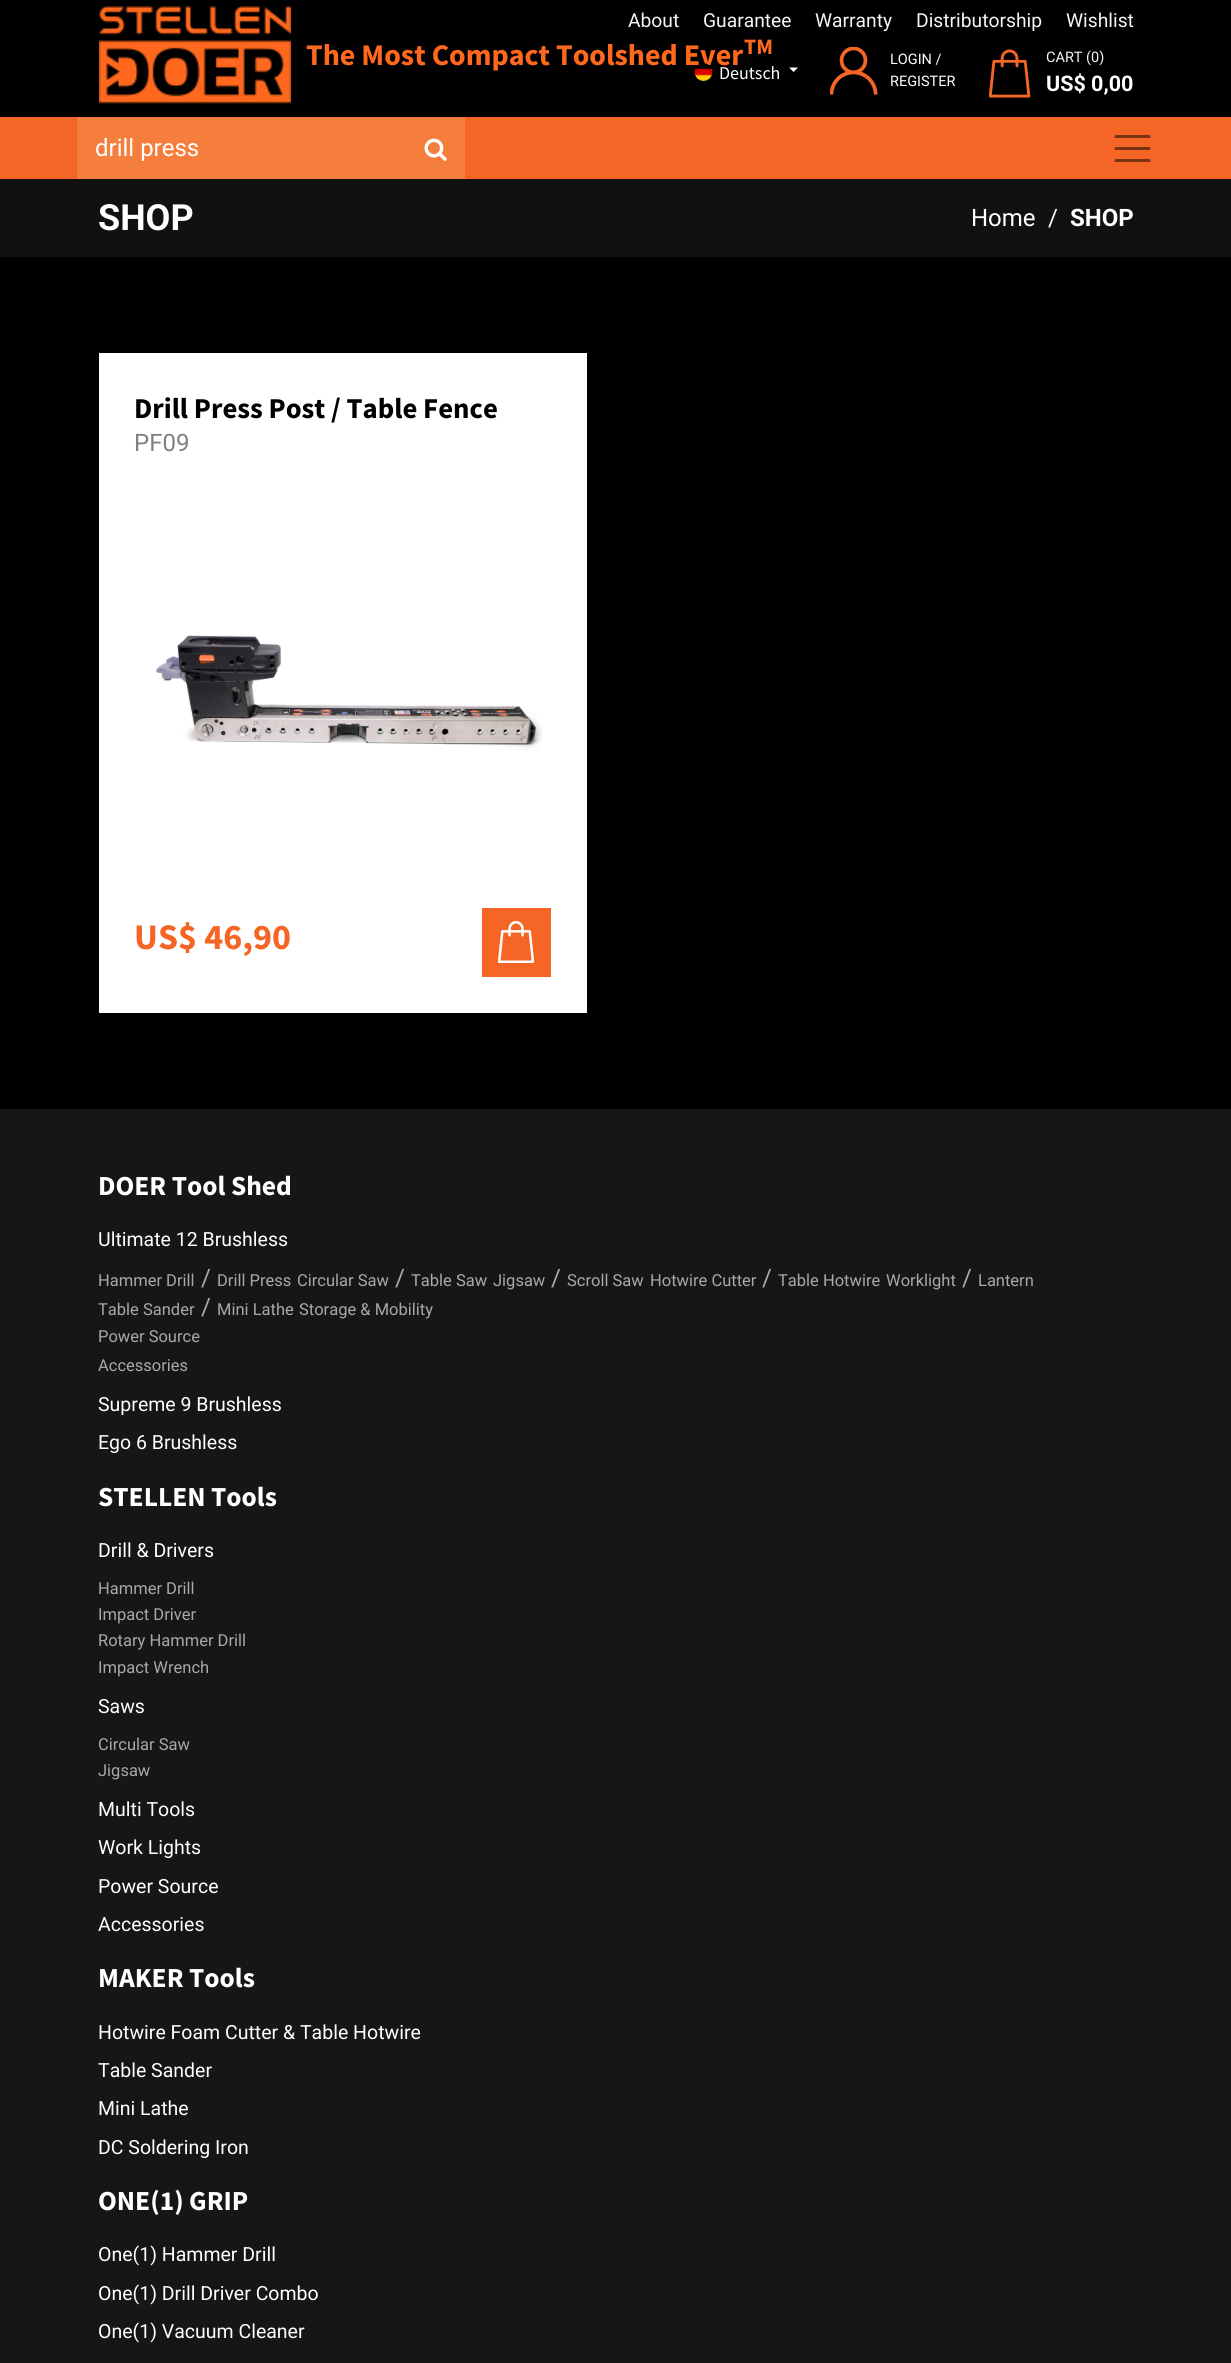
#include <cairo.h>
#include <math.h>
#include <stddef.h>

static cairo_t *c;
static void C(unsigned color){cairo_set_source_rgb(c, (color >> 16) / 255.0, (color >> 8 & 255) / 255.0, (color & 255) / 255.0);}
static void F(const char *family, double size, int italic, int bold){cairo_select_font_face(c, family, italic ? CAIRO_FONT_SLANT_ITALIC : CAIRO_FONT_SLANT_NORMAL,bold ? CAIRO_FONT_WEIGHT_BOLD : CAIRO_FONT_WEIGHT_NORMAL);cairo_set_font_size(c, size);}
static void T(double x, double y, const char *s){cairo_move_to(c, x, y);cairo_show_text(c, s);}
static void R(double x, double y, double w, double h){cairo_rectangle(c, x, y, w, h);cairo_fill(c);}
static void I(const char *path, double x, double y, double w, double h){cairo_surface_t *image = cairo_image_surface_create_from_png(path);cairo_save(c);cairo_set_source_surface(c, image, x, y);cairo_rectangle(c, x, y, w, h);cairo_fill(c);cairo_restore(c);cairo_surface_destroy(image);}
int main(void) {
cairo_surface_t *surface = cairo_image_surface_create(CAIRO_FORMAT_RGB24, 1231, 2363);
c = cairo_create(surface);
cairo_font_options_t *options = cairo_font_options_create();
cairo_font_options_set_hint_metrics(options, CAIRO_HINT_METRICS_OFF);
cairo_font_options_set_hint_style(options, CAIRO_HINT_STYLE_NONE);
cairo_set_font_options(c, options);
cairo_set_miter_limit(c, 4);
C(0x161616);
cairo_paint(c);
C(0x000000);
R(0,0,1231,117);
I("1.png",99,6,192,98);
F("Source Sans Pro",30,0,1);
C(0xff681d);
T(306,65,"The Most Compact Toolshed Ever");
F("Source Sans Pro",22,0,1);
T(744,54,"TM");
F("Roboto",19.25,0,0);
C(0xf5f5f5);
T(628,27,"About");
T(703,27,"Guarantee");
T(815,27,"Warranty");
T(916,27,"Distributorship");
T(1066,27,"Wishlist");
I("2.png",694,63,19,18);
F("Source Sans Pro",18,0,0);
C(0xffffff);
T(719,79,"Deutsch");
cairo_new_path(c);
cairo_move_to(c,789,67.5);
cairo_line_to(c,798,67.5);
cairo_line_to(c,793.5,72);
cairo_close_path(c);
cairo_fill(c);
I("3.png",830,47,48,48);
F("Roboto",14.5,0,0);
T(890,64,"LOGIN /");
T(890,86,"REGISTER");
I("4.png",988,49,43,49);
C(0xf5f5f5);
T(1046,62,"CART (0)");
F("Roboto",21.5,0,1);
C(0xffffff);
T(1046,91,"US$ 0,00");
C(0xf46526);
R(0,117,1231,62);
C(0xf67e3d);
R(77,117,388,62);
F("Roboto",24,0,0);
C(0xffffff);
T(95,156,"drill press");
I("5.png",424,138,23,23);
cairo_new_path(c);
cairo_move_to(c,1116,136.5);
cairo_line_to(c,1149,136.5);
cairo_move_to(c,1116,148.5);
cairo_line_to(c,1149,148.5);
cairo_move_to(c,1116,160.5);
cairo_line_to(c,1149,160.5);
C(0x7a3313);
cairo_set_line_width(c,3);
cairo_set_line_cap(c,CAIRO_LINE_CAP_ROUND);
cairo_stroke(c);
C(0x111111);
R(0,179,1231,78);
F("Roboto",36,0,1);
C(0xffffff);
T(98,230,"SHOP");
F("Roboto",24,0,0);
T(971,226,"Home");
T(1048,226,"/");
F("Roboto",24,0,1);
T(1070,226,"SHOP");
C(0x000000);
R(0,257,1231,852);
C(0xffffff);
R(99,353,488,660);
F("Source Sans Pro",28.75,0,1);
C(0x000000);
T(134,418,"Drill Press Post / Table Fence");
F("Roboto",24,0,0);
C(0x808080);
T(134,451,"PF09");
I("6.png",156,635,387,115);
F("Source Sans Pro",36,0,1);
C(0xf46526);
T(134,949,"US$ 46,90");
R(482,908,69,69);
I("7.png",497,921,38,42);
F("Source Sans Pro",27.5,0,1);
C(0xffffff);
T(98,1195,"DOER Tool Shed");
F("Roboto",19.5,0,0);
T(98,1246,"Ultimate 12 Brushless");
F("Roboto",16.5,0,0);
C(0xa9a9a9);
T(98,1286,"Hammer Drill");
F("Roboto",24,0,0);
T(201,1286,"/");
F("Roboto",16.5,0,0);
T(217,1286,"Drill Press");
T(297,1286,"Circular Saw");
F("Roboto",24,0,0);
T(395,1286,"/");
F("Roboto",16.5,0,0);
T(411,1286,"Table Saw");
T(493,1286,"Jigsaw");
F("Roboto",24,0,0);
T(551,1286,"/");
F("Roboto",16.5,0,0);
T(567,1286,"Scroll Saw");
T(650,1286,"Hotwire Cutter");
F("Roboto",24,0,0);
T(762,1286,"/");
F("Roboto",16.5,0,0);
T(778,1286,"Table Hotwire");
T(886,1286,"Worklight");
F("Roboto",24,0,0);
T(962,1286,"/");
F("Roboto",16.5,0,0);
T(978,1286,"Lantern");
T(98,1315,"Table Sander");
F("Roboto",24,0,0);
T(201,1315,"/");
F("Roboto",16.5,0,0);
T(217,1315,"Mini Lathe");
T(299,1315,"Storage & Mobility");
T(98,1342,"Power Source");
T(98,1371,"Accessories");
F("Roboto",19.5,0,0);
C(0xffffff);
T(98,1411,"Supreme 9 Brushless");
T(98,1449,"Ego 6 Brushless");
F("Source Sans Pro",27.5,0,1);
T(98,1506,"STELLEN Tools");
F("Roboto",19.5,0,0);
T(98,1557,"Drill & Drivers");
F("Roboto",16.5,0,0);
C(0xa9a9a9);
T(98,1594,"Hammer Drill");
T(98,1620,"Impact Driver");
T(98,1646,"Rotary Hammer Drill");
T(98,1673,"Impact Wrench");
F("Roboto",19.5,0,0);
C(0xffffff);
T(98,1713,"Saws");
F("Roboto",16.5,0,0);
C(0xa9a9a9);
T(98,1750,"Circular Saw");
T(98,1776,"Jigsaw");
F("Roboto",19.5,0,0);
C(0xffffff);
T(98,1816,"Multi Tools");
T(98,1854,"Work Lights");
T(98,1893,"Power Source");
T(98,1931,"Accessories");
F("Source Sans Pro",27.5,0,1);
T(98,1987,"MAKER Tools");
F("Roboto",19.5,0,0);
T(98,2039,"Hotwire Foam Cutter & Table Hotwire");
T(98,2077,"Table Sander");
T(98,2115,"Mini Lathe");
T(98,2154,"DC Soldering Iron");
F("Source Sans Pro",27.5,0,1);
T(98,2210,"ONE(1) GRIP");
F("Roboto",19.5,0,0);
T(98,2261,"One(1) Hammer Drill");
T(98,2300,"One(1) Drill Driver Combo");
T(98,2338,"One(1) Vacuum Cleaner");
cairo_surface_write_to_png(surface, "o.png");
cairo_font_options_destroy(options);
cairo_destroy(c);
cairo_surface_destroy(surface);
return 0;
}
